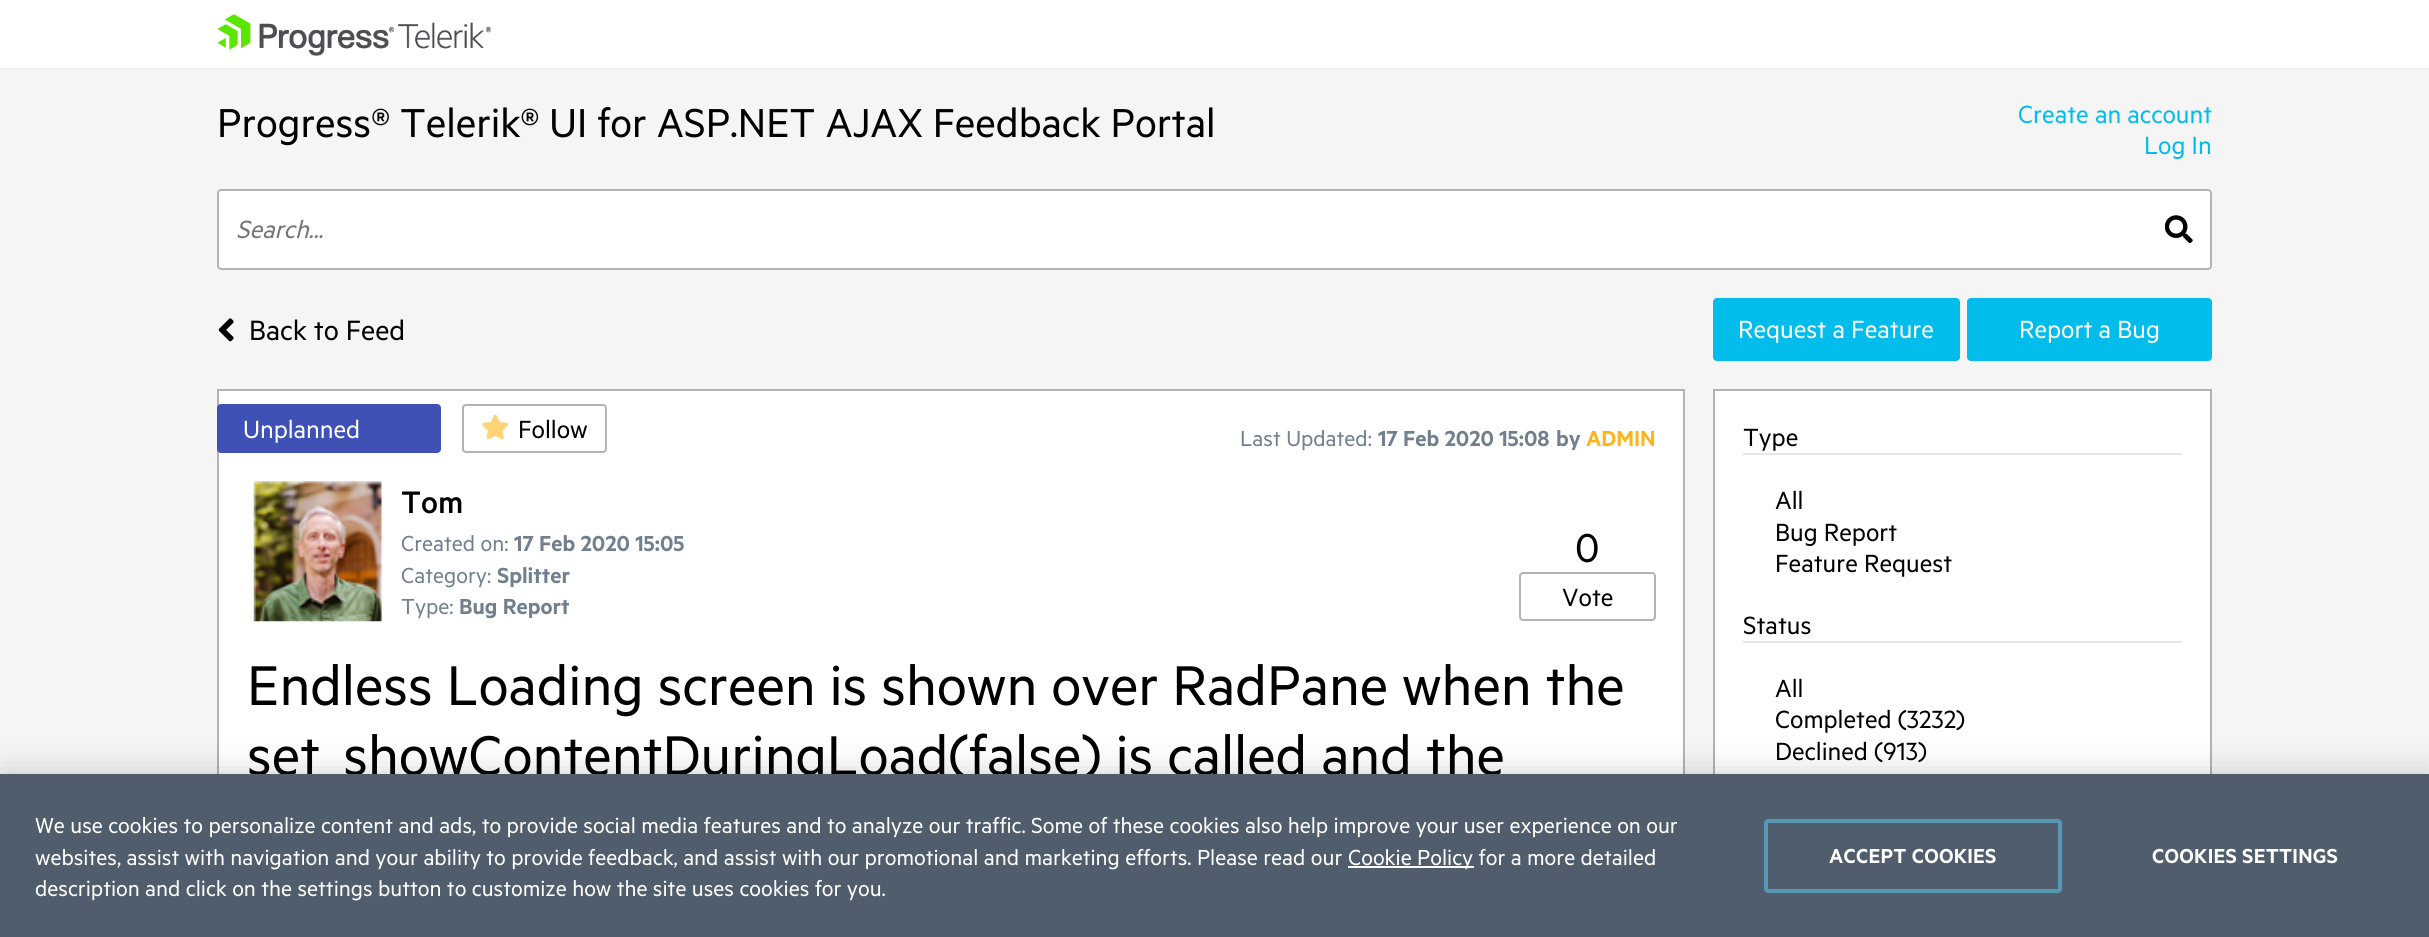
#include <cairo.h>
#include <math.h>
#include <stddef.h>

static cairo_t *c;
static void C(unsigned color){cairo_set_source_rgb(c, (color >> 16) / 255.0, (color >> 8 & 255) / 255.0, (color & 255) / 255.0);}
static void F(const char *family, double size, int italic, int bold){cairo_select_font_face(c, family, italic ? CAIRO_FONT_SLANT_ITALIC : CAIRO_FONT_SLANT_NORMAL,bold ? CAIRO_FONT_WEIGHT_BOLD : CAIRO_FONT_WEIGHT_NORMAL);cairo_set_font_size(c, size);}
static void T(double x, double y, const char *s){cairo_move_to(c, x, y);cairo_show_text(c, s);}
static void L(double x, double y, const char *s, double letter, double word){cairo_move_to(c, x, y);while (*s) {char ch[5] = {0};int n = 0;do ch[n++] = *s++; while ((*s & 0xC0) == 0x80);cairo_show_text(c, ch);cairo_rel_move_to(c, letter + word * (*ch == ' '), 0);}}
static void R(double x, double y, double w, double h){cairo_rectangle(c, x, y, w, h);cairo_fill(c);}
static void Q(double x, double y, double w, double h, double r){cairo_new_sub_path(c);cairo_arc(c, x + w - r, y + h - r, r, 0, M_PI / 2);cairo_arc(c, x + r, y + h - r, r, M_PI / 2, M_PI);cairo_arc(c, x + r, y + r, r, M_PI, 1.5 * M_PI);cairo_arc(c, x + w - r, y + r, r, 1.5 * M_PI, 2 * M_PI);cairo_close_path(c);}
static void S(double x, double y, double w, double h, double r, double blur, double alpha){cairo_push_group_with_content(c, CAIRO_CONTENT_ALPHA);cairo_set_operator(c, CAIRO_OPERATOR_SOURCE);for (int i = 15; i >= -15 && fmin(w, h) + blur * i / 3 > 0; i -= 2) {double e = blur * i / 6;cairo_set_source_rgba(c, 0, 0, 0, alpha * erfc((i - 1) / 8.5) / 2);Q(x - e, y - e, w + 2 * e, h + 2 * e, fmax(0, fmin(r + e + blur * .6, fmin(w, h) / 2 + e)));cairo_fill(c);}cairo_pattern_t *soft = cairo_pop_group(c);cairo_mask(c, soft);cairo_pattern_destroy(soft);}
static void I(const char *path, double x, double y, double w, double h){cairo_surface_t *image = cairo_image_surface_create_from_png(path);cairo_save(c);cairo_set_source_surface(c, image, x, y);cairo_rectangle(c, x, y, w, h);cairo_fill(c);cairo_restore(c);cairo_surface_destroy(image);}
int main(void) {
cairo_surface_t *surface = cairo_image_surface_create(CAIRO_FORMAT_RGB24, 2429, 937);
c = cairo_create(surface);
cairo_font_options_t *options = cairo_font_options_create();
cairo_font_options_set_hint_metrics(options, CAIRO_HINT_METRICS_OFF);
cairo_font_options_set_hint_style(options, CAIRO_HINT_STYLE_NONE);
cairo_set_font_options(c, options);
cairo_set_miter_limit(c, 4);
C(0xf5f5f5);
cairo_paint(c);
C(0xffffff);
R(0,0,2429,68);
C(0xeff0f1);
R(0,68,2429,2);
I("1.png",217,14,274,42);
F("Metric",45.5,0,0);
C(0x000000);
T(217,137,"Progress® Telerik® UI for ASP.NET AJAX Feedback Portal");
F("Metric",28,0,0);
C(0x02bceb);
T(2018,123,"Create an account");
T(2144,154,"Log In");
C(0xffffff);
Q(217,189,1995,81,4);
cairo_fill(c);
Q(218,190,1993,79,3);
cairo_set_source_rgba(c,0,0,0,0.3);
cairo_stroke(c);
F("Metric",28,1,0);
C(0x757575);
T(236,238,"Search...");
I("2.png",2165,215,28,28);
I("3.png",218,318,16,24);
F("Metric",31.5,0,0);
C(0x000000);
T(249,340,"Back to Feed");
C(0x02bceb);
Q(1713,298,247,63,4);
cairo_fill(c);
F("Metric",28,0,0);
C(0xffffff);
T(1738,338,"Request a Feature");
C(0x02bceb);
Q(1967,298,245,63,4);
cairo_fill(c);
C(0xffffff);
T(2019,338,"Report a Bug");
R(219,391,1464,383);
cairo_rectangle(c,218,390,1466,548);
C(0xb3b3b3);
cairo_stroke(c);
C(0x3f51b5);
Q(217,404,224,49,4);
cairo_fill(c);
C(0xffffff);
T(243,438,"Unplanned");
Q(463,405,143,47,3);
C(0xb3b3b3);
cairo_stroke(c);
I("4.png",482,414,27,26);
C(0x000000);
T(518,438,"Follow");
F("Metric",24.5,0,0);
C(0x71808f);
T(1240,446,"Last Updated:");
F("Metric SemiBold",24.5,0,0);
T(1378,446,"17 Feb 2020 15:08");
T(1556,446,"by");
C(0xffb419);
T(1586,446,"ADMIN");
I("5.png",253,481,129,141);
F("Metric Medium",35,0,0);
C(0x000000);
T(401,513,"Tom");
F("Metric",24.5,0,0);
C(0x71808f);
T(401,551,"Created on:");
F("Metric SemiBold",24.5,0,0);
T(514,551,"17 Feb 2020 15:05");
F("Metric",24.5,0,0);
T(401,583,"Category:");
F("Metric SemiBold",24.5,0,0);
T(497,583,"Splitter");
F("Metric",24.5,0,0);
T(401,614,"Type:");
F("Metric SemiBold",24.5,0,0);
T(459,614,"Bug Report");
F("Metric",45.5,0,0);
C(0x000000);
T(1575,562,"0");
Q(1520,573,135,47,3);
C(0xb3b3b3);
cairo_stroke(c);
F("Metric",28,0,0);
C(0x000000);
T(1562,606,"Vote");
F("Metric",63,0,0);
T(247,705,"Endless Loading screen is shown over RadPane when the");
T(247,775,"set_showContentDuringLoad(false) is called and the");
C(0xffffff);
R(1715,391,495,383);
cairo_rectangle(c,1714,390,497,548);
C(0xb3b3b3);
cairo_stroke(c);
C(0xe6e6e6);
R(1743,453,439,2);
F("Metric",28,0,0);
C(0x000000);
T(1743,446,"Type");
T(1775,509,"All");
T(1775,541,"Bug Report");
T(1775,572,"Feature Request");
C(0xe6e6e6);
R(1743,641,439,2);
C(0x000000);
T(1743,634,"Status");
T(1775,697,"All");
T(1775,728,"Completed (3232)");
T(1775,760,"Declined (913)");
C(0x000000);
S(0,774,2429,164,0,16,.2);
C(0x4f5d6c);
R(0,774,2429,163);
F("Metric",24.5,0,0);
C(0xffffff);
T(35,833,"We use cookies to personalize content and ads, to provide social media features and to analyze our traffic. Some of these cookies also help improve your user experience on our");
T(35,865,"websites, assist with navigation and your ability to provide feedback, and assist with our promotional and marketing efforts. Please read our");
R(1348,866,126,2);
T(1348,865,"Cookie Policy for a more detailed");
T(35,896,"description and click on the settings button to customize how the site uses cookies for you.");
Q(1766,821,294,70,2);
C(0x5699b6);
cairo_set_line_width(c,4);
cairo_stroke(c);
F("Metric SemiBold",22.75,0,0);
C(0xffffff);
L(1829,863,"ACCEPT COOKIES",.25,0);
L(2152,863,"COOKIES SETTINGS",.25,0);
cairo_surface_write_to_png(surface, "o.png");
cairo_font_options_destroy(options);
cairo_destroy(c);
cairo_surface_destroy(surface);
return 0;
}
